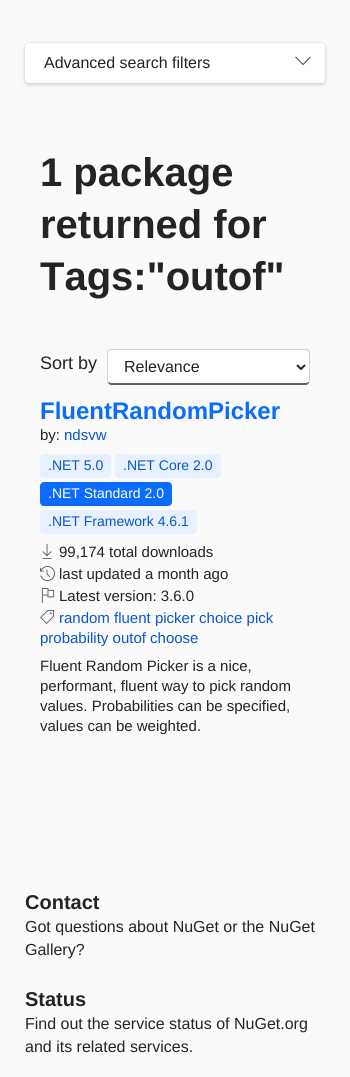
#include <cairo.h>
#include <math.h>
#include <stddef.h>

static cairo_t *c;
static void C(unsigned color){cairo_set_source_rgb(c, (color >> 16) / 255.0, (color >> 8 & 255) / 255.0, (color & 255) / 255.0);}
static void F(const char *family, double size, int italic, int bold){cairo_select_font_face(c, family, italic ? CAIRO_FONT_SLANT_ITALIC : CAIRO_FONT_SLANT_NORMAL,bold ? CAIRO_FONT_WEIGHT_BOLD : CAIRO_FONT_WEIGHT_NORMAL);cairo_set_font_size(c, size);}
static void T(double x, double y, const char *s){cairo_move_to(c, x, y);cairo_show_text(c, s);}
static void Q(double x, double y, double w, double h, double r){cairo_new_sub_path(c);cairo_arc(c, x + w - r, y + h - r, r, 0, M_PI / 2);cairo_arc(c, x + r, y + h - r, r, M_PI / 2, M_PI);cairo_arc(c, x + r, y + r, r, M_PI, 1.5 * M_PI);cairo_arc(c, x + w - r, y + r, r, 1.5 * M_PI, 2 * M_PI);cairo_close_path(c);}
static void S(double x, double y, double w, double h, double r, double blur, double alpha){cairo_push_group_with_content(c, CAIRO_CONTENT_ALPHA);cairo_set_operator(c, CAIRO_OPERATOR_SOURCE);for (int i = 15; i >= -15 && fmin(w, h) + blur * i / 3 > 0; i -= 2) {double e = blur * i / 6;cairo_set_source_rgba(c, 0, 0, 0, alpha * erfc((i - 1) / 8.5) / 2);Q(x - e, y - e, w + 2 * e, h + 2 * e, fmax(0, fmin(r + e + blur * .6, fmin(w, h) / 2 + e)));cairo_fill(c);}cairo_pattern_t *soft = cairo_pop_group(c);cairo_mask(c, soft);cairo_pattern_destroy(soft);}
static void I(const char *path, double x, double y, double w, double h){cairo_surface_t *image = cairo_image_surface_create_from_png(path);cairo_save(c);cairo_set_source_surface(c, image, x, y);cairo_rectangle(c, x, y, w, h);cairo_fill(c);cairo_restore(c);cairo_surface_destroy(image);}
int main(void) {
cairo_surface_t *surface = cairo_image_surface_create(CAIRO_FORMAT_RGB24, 350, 1077);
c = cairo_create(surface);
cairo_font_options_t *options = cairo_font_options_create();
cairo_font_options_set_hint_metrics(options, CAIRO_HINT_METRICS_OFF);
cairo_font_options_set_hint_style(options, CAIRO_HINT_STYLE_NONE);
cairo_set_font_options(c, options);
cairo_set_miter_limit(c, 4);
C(0xfafafa);
cairo_paint(c);
C(0x000000);
S(25,45,300,40,4,2,.14);
S(25,43,300,40,4,1,.12);
C(0xffffff);
Q(25,43,300,40,4);
cairo_fill(c);
F("Liberation Sans",16,0,0);
C(0x242424);
T(44,68,"Advanced search filters");
I("1.png",295,56,16,9);
F("Liberation Sans",40,0,1);
T(40,186,"1 package");
T(40,238,"returned for");
T(40,290,"Tags:\"outof\"");
F("Liberation Sans",18,0,0);
T(40,369,"Sort by");
C(0xffffff);
cairo_new_path(c);
cairo_move_to(c,111,350);
cairo_line_to(c,306,350);
cairo_curve_to(c,308,350,309,351,309,353);
cairo_line_to(c,309,381);
cairo_curve_to(c,309,382,308,383,306,383);
cairo_line_to(c,111,383);
cairo_curve_to(c,109,383,108,382,108,381);
cairo_line_to(c,108,353);
cairo_curve_to(c,108,351,109,350,111,350);
cairo_close_path(c);
cairo_fill(c);
C(0xd1d1d1);
cairo_new_path(c);
cairo_move_to(c,111,349);
cairo_line_to(c,108,350);
cairo_line_to(c,109,351);
cairo_line_to(c,111,350);
cairo_line_to(c,306,350);
cairo_line_to(c,308,351);
cairo_line_to(c,309,350);
cairo_line_to(c,306,349);
cairo_close_path(c);
cairo_fill(c);
cairo_new_path(c);
cairo_move_to(c,310,381);
cairo_line_to(c,310,353);
cairo_curve_to(c,310,352,309.5,351,309,350);
cairo_line_to(c,308,351);
cairo_line_to(c,309,352.5);
cairo_line_to(c,309,381);
cairo_line_to(c,308.5,382);
cairo_line_to(c,309,383.5);
cairo_curve_to(c,309.5,382.5,310,382,310,381);
cairo_close_path(c);
cairo_fill(c);
C(0x616161);
cairo_new_path(c);
cairo_move_to(c,111,385);
cairo_line_to(c,306,385);
cairo_curve_to(c,307,385,308,384,309,383);
cairo_line_to(c,309,382);
cairo_line_to(c,306,383);
cairo_line_to(c,111,383);
cairo_line_to(c,108,382);
cairo_line_to(c,108,383);
cairo_curve_to(c,109,384,110,385,111,385);
cairo_close_path(c);
cairo_fill(c);
C(0xd1d1d1);
cairo_new_path(c);
cairo_move_to(c,107,353);
cairo_line_to(c,107,381);
cairo_curve_to(c,107,382,107.5,382.5,108,383.5);
cairo_line_to(c,108.5,382);
cairo_line_to(c,108,381);
cairo_line_to(c,108,352.5);
cairo_line_to(c,109,351);
cairo_line_to(c,108,350);
cairo_curve_to(c,107.5,351,107,352,107,353);
cairo_close_path(c);
cairo_fill(c);
cairo_new_path(c);
cairo_move_to(c,297,365);
cairo_line_to(c,301,369);
cairo_line_to(c,305,365);
C(0x242424);
cairo_stroke(c);
F("Liberation Sans",16,0,0);
T(124,372,"Relevance");
F("Liberation Sans",24,0,1);
C(0x0b6cff);
T(40,419,"FluentRandomPicker");
F("Liberation Sans",15,0,0);
C(0x242424);
T(40,440,"by:");
C(0x0956cc);
T(64,440,"ndsvw");
C(0xe7f0ff);
Q(40,454,71,24,4);
cairo_fill(c);
F("Liberation Sans",14,0,0);
C(0x0956cc);
T(48,470,".NET 5.0");
C(0xe7f0ff);
Q(115,454,106,24,4);
cairo_fill(c);
C(0x0956cc);
T(123,470,".NET Core 2.0");
C(0x0b6cff);
Q(40,482,132,24,4);
cairo_fill(c);
C(0xffffff);
T(48,498,".NET Standard 2.0");
C(0xe7f0ff);
Q(40,510,157,24,4);
cairo_fill(c);
C(0x0956cc);
T(48,526,".NET Framework 4.6.1");
I("2.png",42,544,10,15);
F("Liberation Sans",15,0,0);
C(0x242424);
T(59,557,"99,174 total downloads");
I("3.png",40,566,15,15);
T(59,579,"last updated a month ago");
I("4.png",41,588,14,15);
T(59,601,"Latest version: 3.6.0");
I("5.png",40,610,15,14);
C(0x0956cc);
T(59,623,"random fluent picker choice pick");
T(40,643,"probability outof choose");
C(0x242424);
T(40,671,"Fluent Random Picker is a nice,");
T(40,691,"performant, fluent way to pick random");
T(40,711,"values. Probabilities can be specified,");
T(40,731,"values can be weighted.");
F("Liberation Sans",20,0,1);
T(25,909,"Contact");
F("Liberation Sans",16,0,0);
T(25,932,"Got questions about NuGet or the NuGet");
T(25,955,"Gallery?");
F("Liberation Sans",20,0,1);
T(25,1006,"Status");
F("Liberation Sans",16,0,0);
T(25,1029,"Find out the service status of NuGet.org");
T(25,1052,"and its related services.");
cairo_surface_write_to_png(surface, "o.png");
cairo_font_options_destroy(options);
cairo_destroy(c);
cairo_surface_destroy(surface);
return 0;
}
